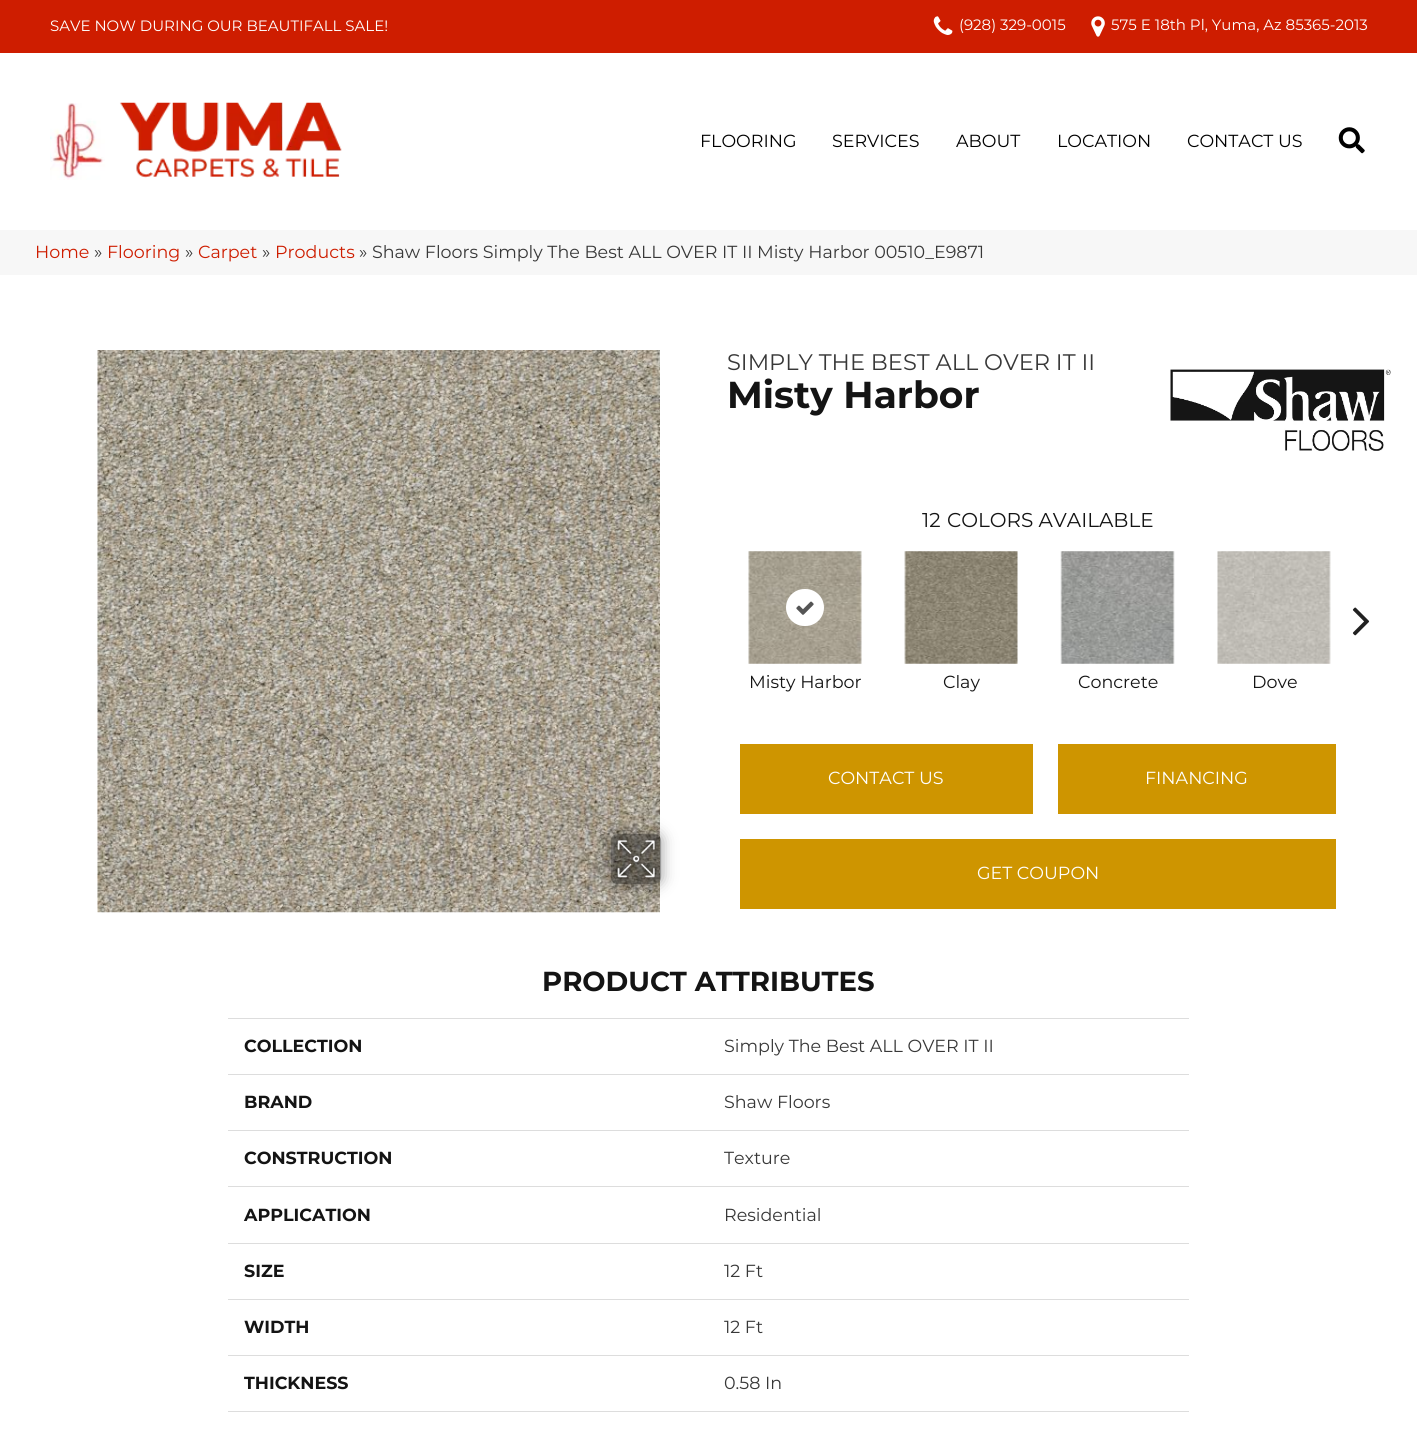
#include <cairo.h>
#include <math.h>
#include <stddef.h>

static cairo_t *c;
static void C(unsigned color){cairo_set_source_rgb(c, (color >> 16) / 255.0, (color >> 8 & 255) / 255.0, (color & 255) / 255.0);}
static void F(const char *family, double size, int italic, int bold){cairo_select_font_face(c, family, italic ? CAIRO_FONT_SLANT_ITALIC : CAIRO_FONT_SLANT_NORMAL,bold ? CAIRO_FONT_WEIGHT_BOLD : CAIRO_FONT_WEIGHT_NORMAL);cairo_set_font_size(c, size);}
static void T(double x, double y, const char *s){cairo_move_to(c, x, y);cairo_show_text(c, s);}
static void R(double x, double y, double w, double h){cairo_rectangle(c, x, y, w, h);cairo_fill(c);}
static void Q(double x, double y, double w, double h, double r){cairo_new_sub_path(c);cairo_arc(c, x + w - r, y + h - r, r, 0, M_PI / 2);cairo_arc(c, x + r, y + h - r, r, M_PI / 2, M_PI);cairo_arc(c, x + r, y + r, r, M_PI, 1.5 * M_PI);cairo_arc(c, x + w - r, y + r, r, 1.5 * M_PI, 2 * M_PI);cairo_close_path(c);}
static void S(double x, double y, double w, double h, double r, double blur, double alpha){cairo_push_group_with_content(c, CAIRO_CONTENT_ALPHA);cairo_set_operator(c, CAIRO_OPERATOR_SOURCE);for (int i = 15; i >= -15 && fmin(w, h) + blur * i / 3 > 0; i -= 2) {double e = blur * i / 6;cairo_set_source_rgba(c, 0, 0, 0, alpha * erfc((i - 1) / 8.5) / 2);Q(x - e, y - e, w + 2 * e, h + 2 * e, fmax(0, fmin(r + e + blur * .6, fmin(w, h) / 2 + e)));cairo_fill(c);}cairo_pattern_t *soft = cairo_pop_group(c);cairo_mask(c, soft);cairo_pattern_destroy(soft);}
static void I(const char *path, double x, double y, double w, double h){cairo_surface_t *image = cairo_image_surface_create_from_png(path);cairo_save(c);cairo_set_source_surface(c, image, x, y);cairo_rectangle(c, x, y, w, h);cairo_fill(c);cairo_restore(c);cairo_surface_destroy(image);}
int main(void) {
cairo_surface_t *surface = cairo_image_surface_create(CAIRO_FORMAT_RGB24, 1417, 1441);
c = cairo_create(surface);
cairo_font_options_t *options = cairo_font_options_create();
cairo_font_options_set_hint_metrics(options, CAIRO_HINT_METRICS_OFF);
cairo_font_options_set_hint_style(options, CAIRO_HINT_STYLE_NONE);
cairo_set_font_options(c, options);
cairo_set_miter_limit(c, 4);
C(0xffffff);
cairo_paint(c);
C(0xce1d00);
R(0,0,1417,53);
F("Montserrat",15,0,0);
C(0xffffff);
T(50,31,"SAVE NOW DURING OUR BEAUTIFALL SALE!");
I("1.png",933,16,20,19);
T(959,30,"(928) 329-0015");
I("2.png",1091,16,14,21);
T(1111,30,"575 E 18th Pl, Yuma, Az 85365-2013");
I("3.png",50,102,292,78);
F("Montserrat",17.5,0,0);
C(0x000000);
T(700,147,"FLOORING");
T(832,147,"SERVICES");
T(956,147,"ABOUT");
T(1057,147,"LOCATION");
T(1187,147,"CONTACT US");
I("4.png",1338,127,27,27);
C(0xf7f7f7);
R(0,230,1417,45);
C(0xce1d00);
T(35,258,"Home");
C(0x383838);
T(94,258,"»");
C(0xce1d00);
T(107,258,"Flooring");
C(0x383838);
T(185,258,"»");
C(0xce1d00);
T(198,258,"Carpet");
C(0x383838);
T(262,258,"»");
C(0xce1d00);
T(275,258,"Products");
C(0x383838);
T(359,258,"» Shaw Floors Simply The Best ALL OVER IT II Misty Harbor 00510_E9871");
I("5.png",97,350,563,563);
cairo_save(c);
cairo_set_fill_rule(c,CAIRO_FILL_RULE_EVEN_ODD);
cairo_new_path(c);
cairo_move_to(c,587,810);
cairo_line_to(c,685,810);
cairo_line_to(c,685,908);
cairo_line_to(c,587,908);
cairo_close_path(c);
cairo_move_to(c,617,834);
cairo_line_to(c,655,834);
cairo_curve_to(c,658.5,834,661,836.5,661,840);
cairo_line_to(c,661,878);
cairo_curve_to(c,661,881.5,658.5,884,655,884);
cairo_line_to(c,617,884);
cairo_curve_to(c,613.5,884,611,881.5,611,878);
cairo_line_to(c,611,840);
cairo_curve_to(c,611,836.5,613.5,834,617,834);
cairo_close_path(c);
cairo_clip(c);
C(0x000000);
S(611,834,50,50,6,7.5,.41);
cairo_restore(c);
cairo_set_source_rgba(c,0,0,0,0.4);
Q(611,834,50,50,6);
cairo_fill(c);
I("6.png",614,836,45,46);
F("Montserrat",22.5,0,0);
C(0x383838);
T(727,370,"SIMPLY THE BEST ALL OVER IT II");
F("Montserrat",37.5,0,1);
C(0x141414);
T(727,408,"Misty Harbor");
I("7.png",1170,369,221,82);
F("Montserrat",20,0,0);
T(922,527,"12");
T(947,527,"COLORS AVAILABLE");
I("8.png",1352,607,18,29);
I("9.png",748,551,114,113);
C(0xffffff);
Q(786,589,38,37,18.5);
cairo_fill(c);
I("10.png",796,601,18,14);
F("Montserrat",17.5,0,0);
C(0x141414);
T(749,688,"Misty Harbor");
I("11.png",904,551,114,113);
T(943,688,"Clay");
I("12.png",1060,551,115,113);
T(1078,688,"Concrete");
I("13.png",1217,551,114,113);
T(1252,688,"Dove");
C(0xce9500);
R(740,744,293,70);
C(0xffffff);
T(828,784,"CONTACT US");
C(0xce9500);
R(1058,744,278,70);
C(0xffffff);
T(1145,784,"FINANCING");
C(0xce9500);
R(740,839,596,70);
C(0xffffff);
T(977,879,"GET COUPON");
F("Montserrat",27.5,0,1);
C(0x141414);
T(542,991,"PRODUCT ATTRIBUTES");
F("Montserrat",17.5,0,1);
T(244,1052,"COLLECTION");
C(0xdddddd);
R(228,1018,961,1);
F("Montserrat",17.5,0,0);
C(0x383838);
T(724,1052,"Simply The Best ALL OVER IT II");
F("Montserrat",17.5,0,1);
C(0x141414);
T(244,1108,"BRAND");
C(0xdddddd);
R(228,1074,961,1);
F("Montserrat",17.5,0,0);
C(0x383838);
T(724,1108,"Shaw Floors");
F("Montserrat",17.5,0,1);
C(0x141414);
T(244,1164,"CONSTRUCTION");
C(0xdddddd);
R(228,1130,961,1);
F("Montserrat",17.5,0,0);
C(0x383838);
T(724,1164,"Texture");
F("Montserrat",17.5,0,1);
C(0x141414);
T(244,1221,"APPLICATION");
C(0xdddddd);
R(228,1186,961,1);
F("Montserrat",17.5,0,0);
C(0x383838);
T(724,1221,"Residential");
F("Montserrat",17.5,0,1);
C(0x141414);
T(244,1277,"SIZE");
C(0xdddddd);
R(228,1243,961,1);
F("Montserrat",17.5,0,0);
C(0x383838);
T(724,1277,"12 Ft");
F("Montserrat",17.5,0,1);
C(0x141414);
T(244,1333,"WIDTH");
C(0xdddddd);
R(228,1299,961,1);
F("Montserrat",17.5,0,0);
C(0x383838);
T(724,1333,"12 Ft");
F("Montserrat",17.5,0,1);
C(0x141414);
T(244,1389,"THICKNESS");
C(0xdddddd);
R(228,1355,961,1);
F("Montserrat",17.5,0,0);
C(0x383838);
T(724,1389,"0.58 In");
C(0xdddddd);
R(228,1411,961,1);
cairo_surface_write_to_png(surface, "o.png");
cairo_font_options_destroy(options);
cairo_destroy(c);
cairo_surface_destroy(surface);
return 0;
}
